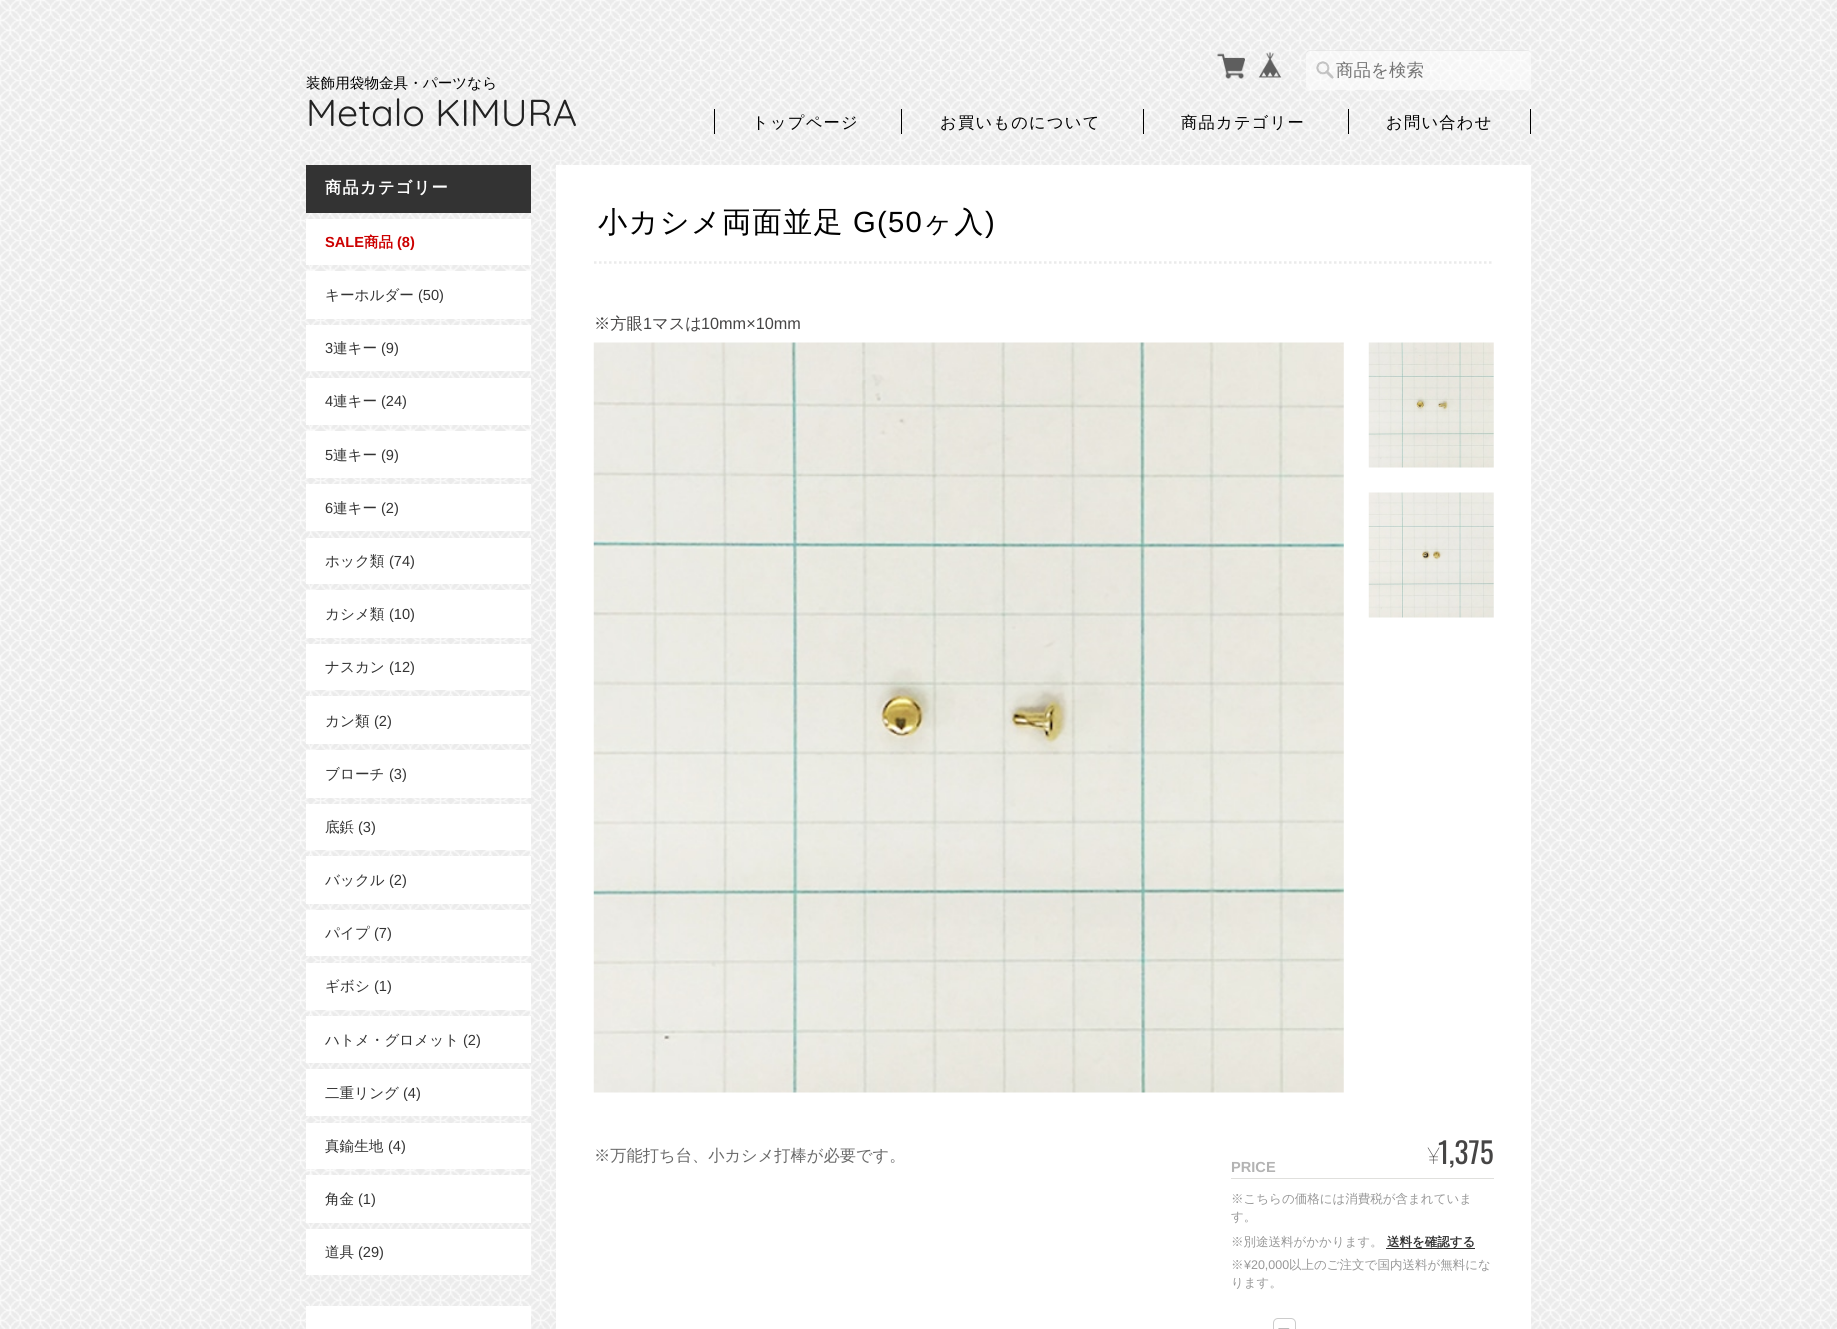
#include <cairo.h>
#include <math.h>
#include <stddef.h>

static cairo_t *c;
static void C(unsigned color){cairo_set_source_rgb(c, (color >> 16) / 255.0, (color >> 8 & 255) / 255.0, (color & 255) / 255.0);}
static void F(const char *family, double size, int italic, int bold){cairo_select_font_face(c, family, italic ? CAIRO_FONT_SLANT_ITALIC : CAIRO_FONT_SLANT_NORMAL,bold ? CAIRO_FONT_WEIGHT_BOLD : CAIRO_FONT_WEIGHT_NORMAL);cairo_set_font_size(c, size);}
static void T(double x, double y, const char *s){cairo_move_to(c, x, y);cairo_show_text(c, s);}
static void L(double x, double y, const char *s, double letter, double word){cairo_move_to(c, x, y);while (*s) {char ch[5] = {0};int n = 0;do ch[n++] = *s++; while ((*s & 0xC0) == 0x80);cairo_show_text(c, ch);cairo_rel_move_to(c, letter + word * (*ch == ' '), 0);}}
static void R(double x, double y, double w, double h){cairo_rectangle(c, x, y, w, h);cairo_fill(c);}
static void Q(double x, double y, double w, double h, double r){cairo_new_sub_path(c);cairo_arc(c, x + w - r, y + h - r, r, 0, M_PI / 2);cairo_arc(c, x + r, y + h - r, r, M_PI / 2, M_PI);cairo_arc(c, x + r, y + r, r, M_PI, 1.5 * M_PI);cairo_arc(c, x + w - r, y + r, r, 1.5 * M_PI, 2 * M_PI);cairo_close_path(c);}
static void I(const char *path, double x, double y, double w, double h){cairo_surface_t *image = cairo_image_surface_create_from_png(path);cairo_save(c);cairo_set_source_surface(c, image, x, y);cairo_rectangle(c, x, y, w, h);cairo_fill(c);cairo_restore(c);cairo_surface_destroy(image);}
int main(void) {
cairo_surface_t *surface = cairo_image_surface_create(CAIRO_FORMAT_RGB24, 1837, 1329);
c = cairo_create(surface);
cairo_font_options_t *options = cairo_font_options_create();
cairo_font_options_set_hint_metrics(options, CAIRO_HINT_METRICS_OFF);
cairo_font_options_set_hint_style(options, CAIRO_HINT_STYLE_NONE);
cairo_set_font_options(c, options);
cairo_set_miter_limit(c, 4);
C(0xffffff);
cairo_paint(c);
I("1.png",0,0,1837,1329);
F("WenQuanYi Zen Hei Medium",14.6,0,0);
C(0x000000);
T(306,88,"装飾用袋物金具・パーツなら");
F("Quicksand Light",37.5,0,0);
C(0x222222);
T(306,126,"Metalo KIMURA");
I("2.png",1217,53,28,26);
I("3.png",1258,52,24,26);
cairo_set_source_rgba(c,1,1,1,0.5);
Q(1306,50,225,40,4);
cairo_fill(c);
I("4.png",1316,61,18,18);
cairo_set_source_rgba(c,0,0,0,0.07);
cairo_new_path(c);
cairo_move_to(c,1310,51);
cairo_line_to(c,1528,51);
cairo_curve_to(c,1530,51,1531,53,1531,55);
cairo_curve_to(c,1531,52,1530,50,1527,50);
cairo_line_to(c,1310,50);
cairo_curve_to(c,1307,50,1306,52,1306,55);
cairo_curve_to(c,1306,53,1308,51,1310,51);
cairo_close_path(c);
cairo_fill(c);
F("WenQuanYi Zen Hei Medium",17.5,0,0);
C(0x757575);
T(1336,76,"商品を検索");
C(0x000000);
R(714,109,1,25);
F("WenQuanYi Zen Hei Medium",16.25,0,0);
L(752,128,"トップページ",1.25,0);
R(901,109,1,25);
L(940,128,"お買いものについて",1.25,0);
R(1143,109,1,25);
L(1181,128,"商品カテゴリー",1.25,0);
R(1530,109,1,25);
R(1348,109,1,25);
L(1386,128,"お問い合わせ",1.25,0);
C(0x333333);
R(306,165,225,48);
F("WenQuanYi Zen Hei",16.25,0,1);
C(0xffffff);
L(325,193,"商品カテゴリー",1.25,0);
R(306,219,225,46);
F("Liberation Sans",14.6,0,1);
C(0xcc0000);
T(325,247,"SALE");
F("WenQuanYi Zen Hei",14.6,0,1);
T(364,247,"商品");
F("Liberation Sans",14.6,0,1);
T(397,247,"(8)");
C(0xffffff);
R(306,271,225,48);
F("WenQuanYi Zen Hei Medium",14.6,0,0);
C(0x333333);
T(325,300,"キーホルダー");
F("Liberation Sans",14.6,0,0);
T(418,300,"(50)");
C(0xffffff);
R(306,325,225,46);
C(0x333333);
T(325,353,"3");
F("WenQuanYi Zen Hei Medium",14.6,0,0);
T(333,353,"連キー");
F("Liberation Sans",14.6,0,0);
T(381,353,"(9)");
C(0xffffff);
R(306,378,225,47);
C(0x333333);
T(325,406,"4");
F("WenQuanYi Zen Hei Medium",14.6,0,0);
T(333,406,"連キー");
F("Liberation Sans",14.6,0,0);
T(381,406,"(24)");
C(0xffffff);
R(306,431,225,47);
C(0x333333);
T(325,460,"5");
F("WenQuanYi Zen Hei Medium",14.6,0,0);
T(333,460,"連キー");
F("Liberation Sans",14.6,0,0);
T(381,460,"(9)");
C(0xffffff);
R(306,484,225,47);
C(0x333333);
T(325,513,"6");
F("WenQuanYi Zen Hei Medium",14.6,0,0);
T(333,513,"連キー");
F("Liberation Sans",14.6,0,0);
T(381,513,"(2)");
C(0xffffff);
R(306,538,225,46);
F("WenQuanYi Zen Hei Medium",14.6,0,0);
C(0x333333);
T(325,566,"ホック類");
F("Liberation Sans",14.6,0,0);
T(389,566,"(74)");
C(0xffffff);
R(306,590,225,48);
F("WenQuanYi Zen Hei Medium",14.6,0,0);
C(0x333333);
T(325,619,"カシメ類");
F("Liberation Sans",14.6,0,0);
T(389,619,"(10)");
C(0xffffff);
R(306,644,225,46);
F("WenQuanYi Zen Hei Medium",14.6,0,0);
C(0x333333);
T(325,672,"ナスカン");
F("Liberation Sans",14.6,0,0);
T(389,672,"(12)");
C(0xffffff);
R(306,696,225,48);
F("WenQuanYi Zen Hei Medium",14.6,0,0);
C(0x333333);
T(325,726,"カン類");
F("Liberation Sans",14.6,0,0);
T(374,726,"(2)");
C(0xffffff);
R(306,750,225,48);
F("WenQuanYi Zen Hei Medium",14.6,0,0);
C(0x333333);
T(325,779,"ブローチ");
F("Liberation Sans",14.6,0,0);
T(389,779,"(3)");
C(0xffffff);
R(306,804,225,46);
F("WenQuanYi Zen Hei Medium",14.6,0,0);
C(0x333333);
T(325,832,"底鋲");
F("Liberation Sans",14.6,0,0);
T(358,832,"(3)");
C(0xffffff);
R(306,856,225,48);
F("WenQuanYi Zen Hei Medium",14.6,0,0);
C(0x333333);
T(325,885,"バックル");
F("Liberation Sans",14.6,0,0);
T(389,885,"(2)");
C(0xffffff);
R(306,910,225,46);
F("WenQuanYi Zen Hei Medium",14.6,0,0);
C(0x333333);
T(325,938,"パイプ");
F("Liberation Sans",14.6,0,0);
T(374,938,"(7)");
C(0xffffff);
R(306,963,225,47);
F("WenQuanYi Zen Hei Medium",14.6,0,0);
C(0x333333);
T(325,991,"ギボシ");
F("Liberation Sans",14.6,0,0);
T(374,991,"(1)");
C(0xffffff);
R(306,1016,225,47);
F("WenQuanYi Zen Hei Medium",14.6,0,0);
C(0x333333);
T(325,1045,"ハトメ・グロメット");
F("Liberation Sans",14.6,0,0);
T(463,1045,"(2)");
C(0xffffff);
R(306,1069,225,47);
F("WenQuanYi Zen Hei Medium",14.6,0,0);
C(0x333333);
T(325,1098,"二重リング");
F("Liberation Sans",14.6,0,0);
T(403,1098,"(4)");
C(0xffffff);
R(306,1123,225,46);
F("WenQuanYi Zen Hei Medium",14.6,0,0);
C(0x333333);
T(325,1151,"真鍮生地");
F("Liberation Sans",14.6,0,0);
T(388,1151,"(4)");
C(0xffffff);
R(306,1175,225,48);
F("WenQuanYi Zen Hei Medium",14.6,0,0);
C(0x333333);
T(325,1204,"角金");
F("Liberation Sans",14.6,0,0);
T(358,1204,"(1)");
C(0xffffff);
R(306,1229,225,46);
F("WenQuanYi Zen Hei Medium",14.6,0,0);
C(0x333333);
T(325,1257,"道具");
F("Liberation Sans",14.6,0,0);
T(358,1257,"(29)");
C(0xffffff);
R(306,1306,225,23);
R(556,165,975,1164);
cairo_new_path(c);
cairo_move_to(c,594,262.5);
cairo_line_to(c,1494,262.5);
C(0xebebeb);
cairo_set_line_width(c,2.5);
cairo_set_dash(c,(double[]){2.5,2.5},2,0);
cairo_stroke(c);
F("WenQuanYi Zen Hei Medium",29.25,0,0);
C(0x000000);
L(598,232,"小カシメ両面並足",1.25,0);
F("Liberation Sans",29.25,0,0);
L(853,232,"G(50",1.25,0);
F("WenQuanYi Zen Hei Medium",29.25,0,0);
L(923,232,"ヶ入",1.25,0);
F("Liberation Sans",29.25,0,0);
L(985,232,")",1.25,0);
F("WenQuanYi Zen Hei Medium",16.25,0,0);
C(0x464545);
T(594,329,"※方眼");
F("Liberation Sans",16.25,0,0);
T(643,329,"1");
F("WenQuanYi Zen Hei Medium",16.25,0,0);
T(652,329,"マスは");
F("Liberation Sans",16.25,0,0);
T(701,329,"10mm×10mm");
I("5.png",593,342,751,751);
I("6.png",1368,342,126,126);
I("7.png",1368,492,126,126);
F("WenQuanYi Zen Hei Medium",16.25,0,0);
C(0x696969);
T(594,1161,"※万能打ち台、小カシメ打棒が必要です。");
F("Liberation Sans",14.6,0,1);
C(0xb3b3b3);
T(1231,1172,"PRICE");
C(0xe0e0dd);
R(1231,1178,263,1);
F("Noto Sans Thin",23,0,0);
C(0x464545);
T(1427,1164,"¥");
F("Oswald",29.25,0,0);
T(1438,1164,"1,375");
F("WenQuanYi Zen Hei Medium",12.5,0,0);
C(0x989898);
T(1231,1203,"※こちらの価格には消費税が含まれていま");
T(1231,1221,"す。");
T(1231,1246,"※別途送料がかかります。");
C(0x333333);
R(1386,1248,89,1);
F("WenQuanYi Zen Hei",12.5,0,1);
T(1387,1246,"送料を確認する");
F("WenQuanYi Zen Hei Medium",12.5,0,0);
C(0x989898);
T(1231,1269,"※");
F("Liberation Sans",12.5,0,0);
T(1244,1269,"¥20,000");
F("WenQuanYi Zen Hei Medium",12.5,0,0);
T(1289,1269,"以上のご注文で国内送料が無料にな");
T(1231,1287,"ります。");
I("8.png",1278,1328,12,1);
Q(1273.5,1318.5,22,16,4.5);
C(0xcccccc);
cairo_set_line_width(c,1);
cairo_set_dash(c,NULL,0,0);
cairo_stroke(c);
cairo_surface_write_to_png(surface, "o.png");
cairo_font_options_destroy(options);
cairo_destroy(c);
cairo_surface_destroy(surface);
return 0;
}
